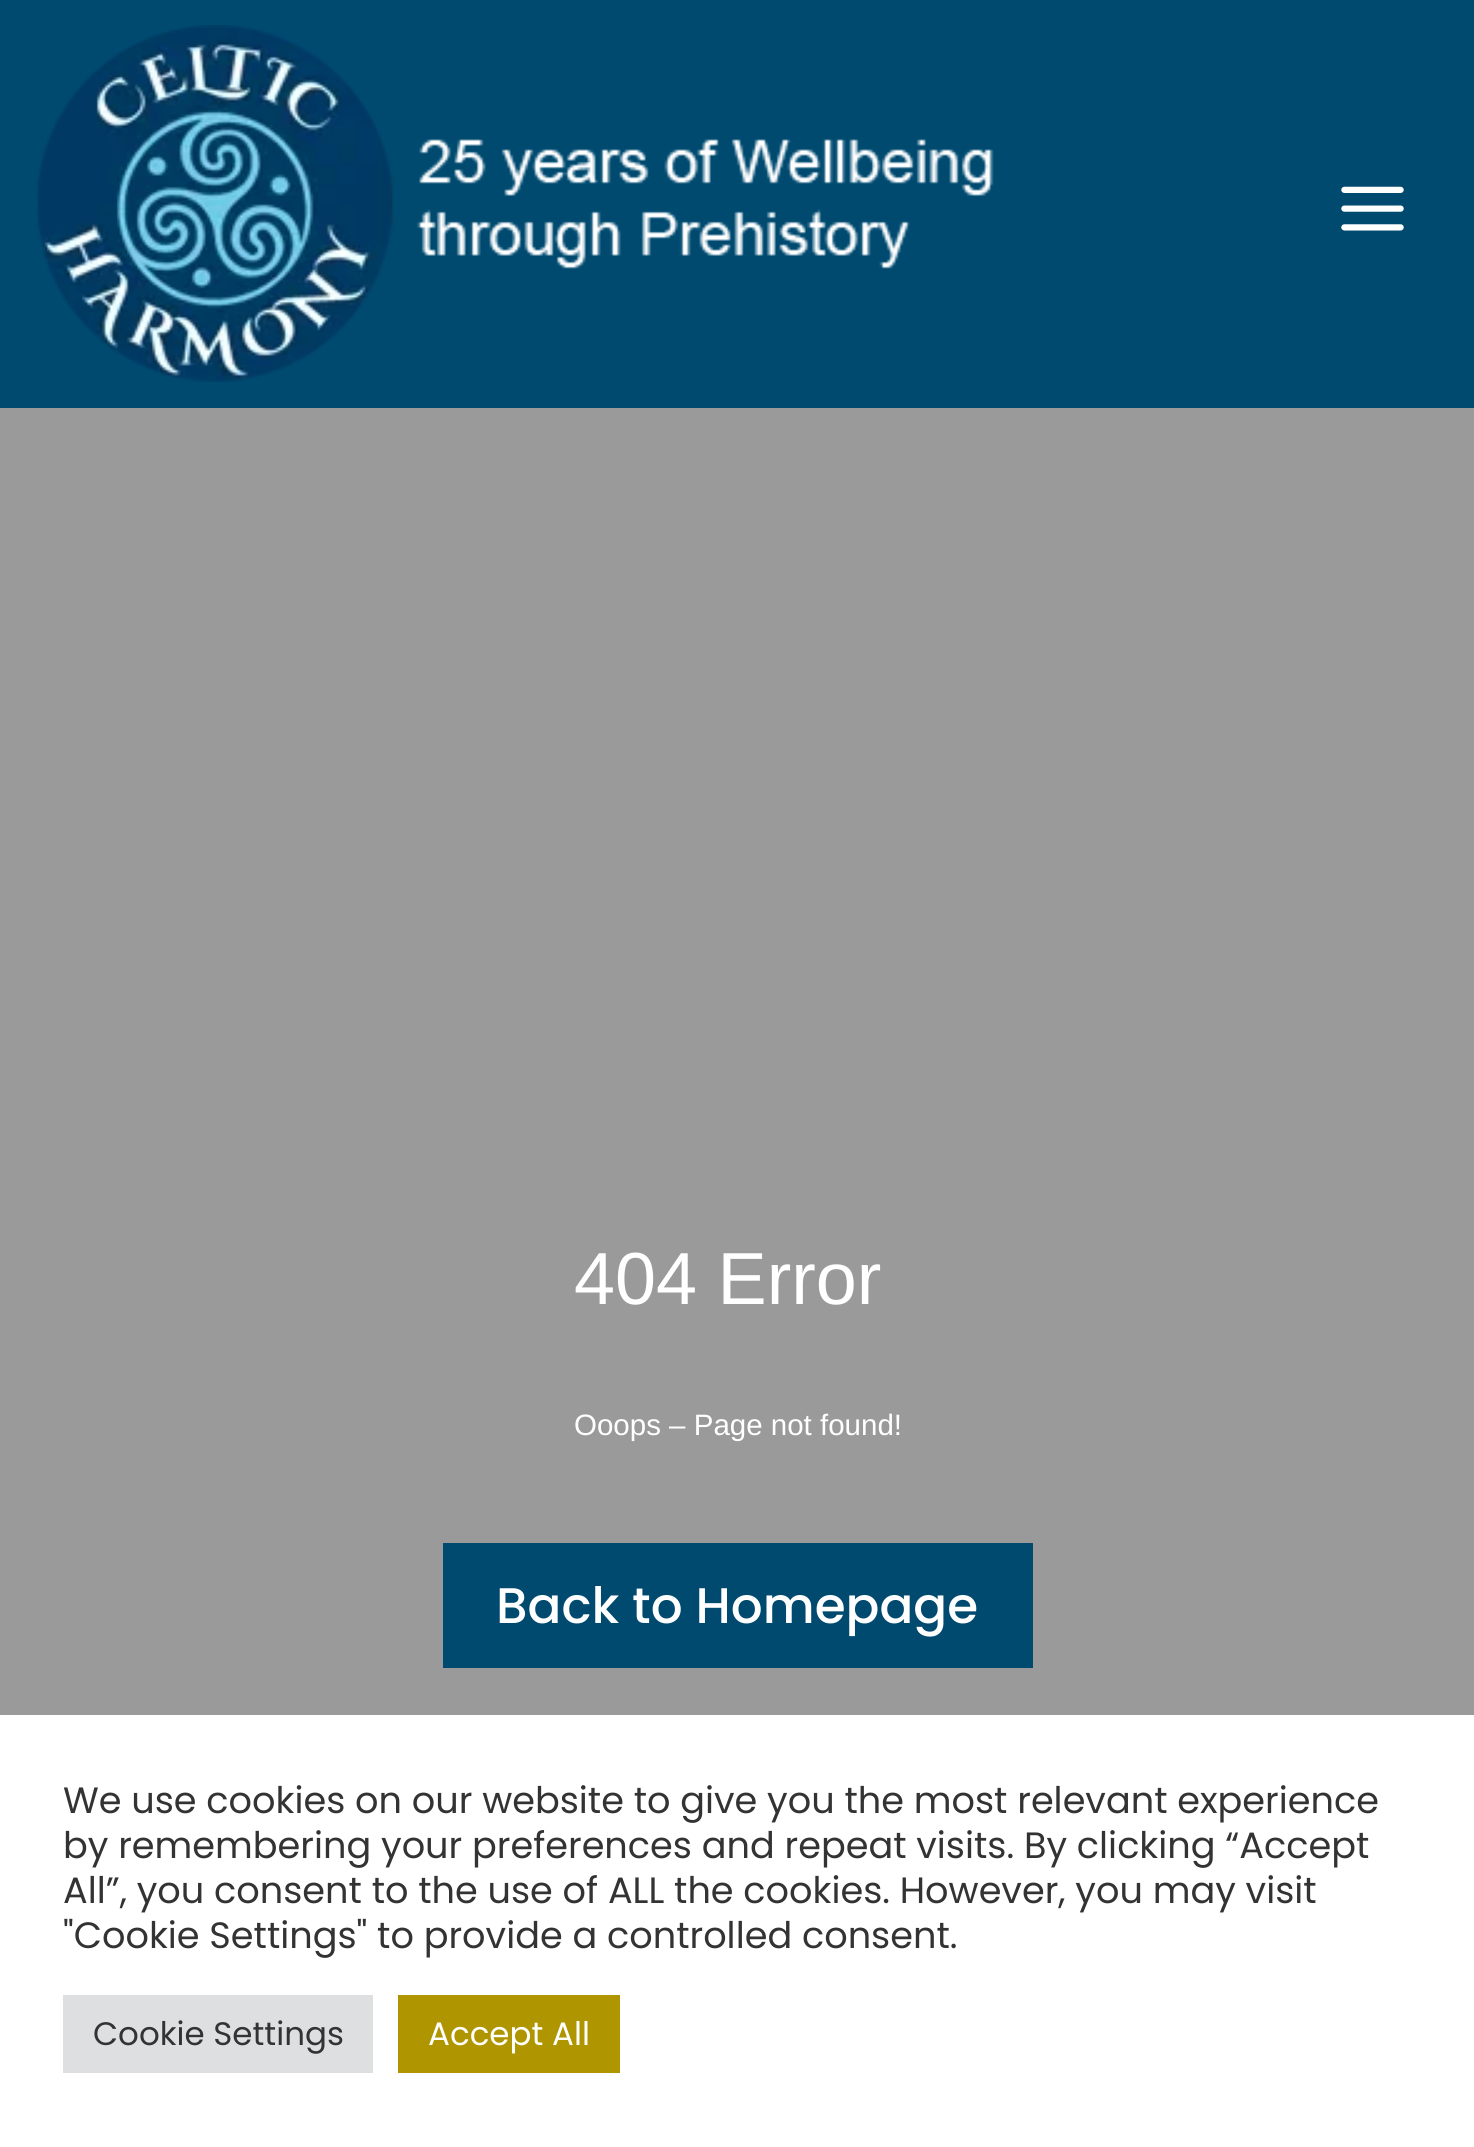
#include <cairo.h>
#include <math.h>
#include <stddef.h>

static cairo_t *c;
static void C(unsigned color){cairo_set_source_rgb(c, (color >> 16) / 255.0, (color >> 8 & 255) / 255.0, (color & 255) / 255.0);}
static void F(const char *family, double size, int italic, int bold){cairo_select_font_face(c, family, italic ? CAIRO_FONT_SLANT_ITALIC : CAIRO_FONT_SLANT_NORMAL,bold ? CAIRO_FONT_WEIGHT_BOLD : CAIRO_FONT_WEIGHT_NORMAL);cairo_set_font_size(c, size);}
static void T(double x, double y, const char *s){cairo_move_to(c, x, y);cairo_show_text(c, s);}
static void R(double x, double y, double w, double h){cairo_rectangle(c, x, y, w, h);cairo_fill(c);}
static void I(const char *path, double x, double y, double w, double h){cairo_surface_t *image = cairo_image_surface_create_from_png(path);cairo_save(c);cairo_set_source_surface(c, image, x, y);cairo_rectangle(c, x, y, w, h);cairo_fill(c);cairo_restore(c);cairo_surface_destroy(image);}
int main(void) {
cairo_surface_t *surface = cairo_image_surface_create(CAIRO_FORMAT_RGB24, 1474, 2147);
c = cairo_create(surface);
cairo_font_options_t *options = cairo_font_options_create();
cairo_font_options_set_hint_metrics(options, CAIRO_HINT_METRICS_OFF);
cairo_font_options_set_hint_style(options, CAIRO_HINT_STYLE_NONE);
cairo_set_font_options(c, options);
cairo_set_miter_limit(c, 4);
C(0x9a9a9a);
cairo_paint(c);
C(0x004a70);
R(0,0,1474,408);
I("1.png",37,25,957,357);
I("2.png",1341,186,63,45);
F("Liberation Sans",73.75,0,0);
C(0xffffff);
T(574,1304,"404 Error");
F("Liberation Sans",29.5,0,0);
T(574,1435,"Ooops – Page not found!");
C(0x004a70);
R(443,1543,590,125);
F("Poppins Medium",50,0,0);
C(0xffffff);
T(496,1623,"Back to Homepage");
R(0,1715,1474,432);
F("Poppins",36.65,0,0);
C(0x333333);
T(63,1813,"We use cookies on our website to give you the most relevant experience");
T(63,1858,"by remembering your preferences and repeat visits. By clicking “Accept");
T(63,1903,"All”, you consent to the use of ALL the cookies. However, you may visit");
T(63,1948,"\"Cookie Settings\" to provide a controlled consent.");
C(0xdedfe0);
R(63,1995,310,78);
F("Poppins",32.5,0,0);
C(0x333333);
T(93,2045,"Cookie Settings");
C(0xaf9500);
R(398,1995,222,78);
C(0xffffff);
T(428,2045,"Accept All");
cairo_surface_write_to_png(surface, "o.png");
cairo_font_options_destroy(options);
cairo_destroy(c);
cairo_surface_destroy(surface);
return 0;
}
